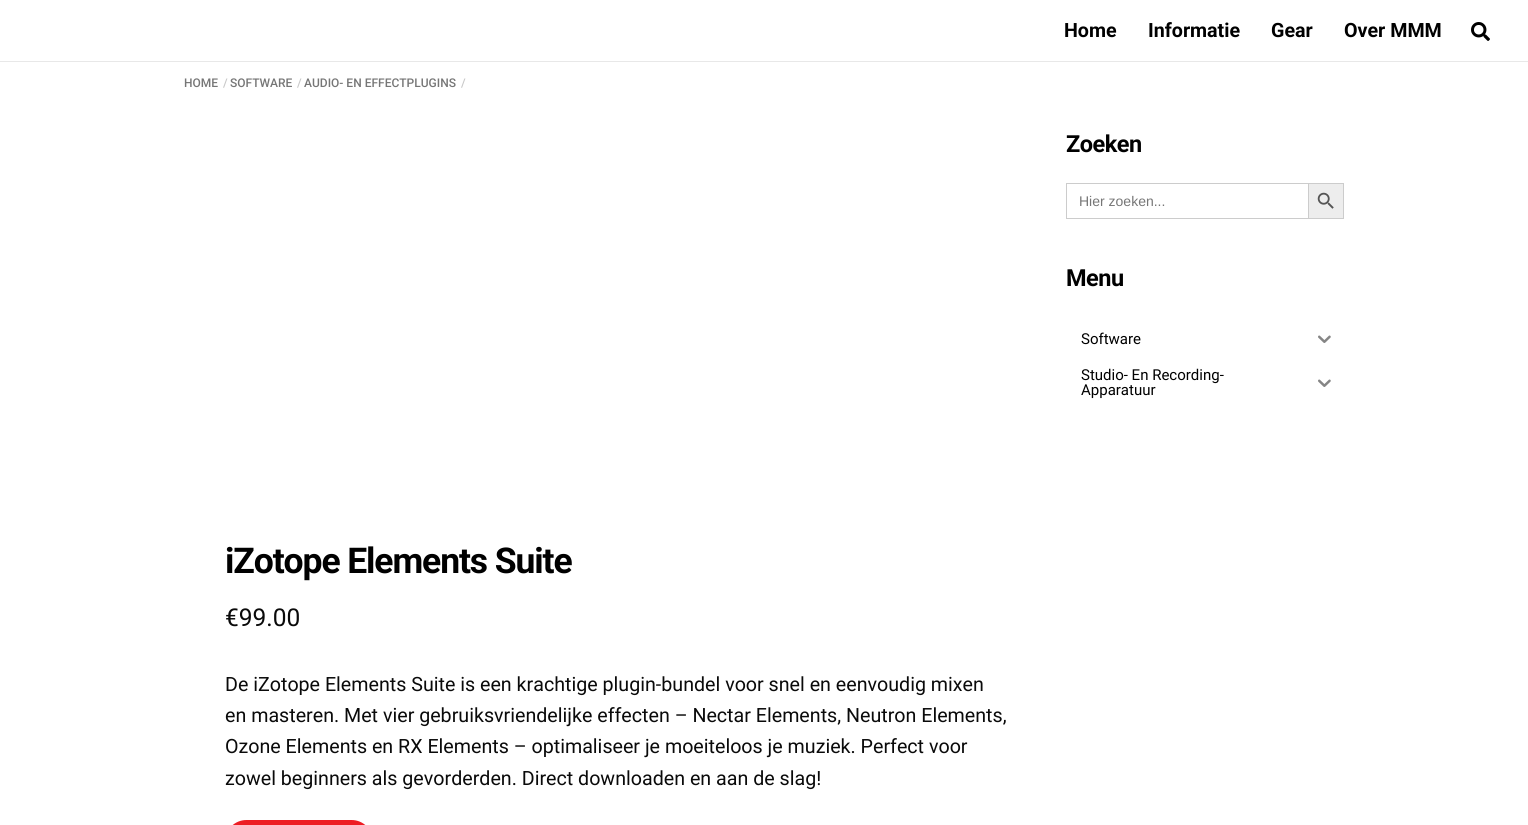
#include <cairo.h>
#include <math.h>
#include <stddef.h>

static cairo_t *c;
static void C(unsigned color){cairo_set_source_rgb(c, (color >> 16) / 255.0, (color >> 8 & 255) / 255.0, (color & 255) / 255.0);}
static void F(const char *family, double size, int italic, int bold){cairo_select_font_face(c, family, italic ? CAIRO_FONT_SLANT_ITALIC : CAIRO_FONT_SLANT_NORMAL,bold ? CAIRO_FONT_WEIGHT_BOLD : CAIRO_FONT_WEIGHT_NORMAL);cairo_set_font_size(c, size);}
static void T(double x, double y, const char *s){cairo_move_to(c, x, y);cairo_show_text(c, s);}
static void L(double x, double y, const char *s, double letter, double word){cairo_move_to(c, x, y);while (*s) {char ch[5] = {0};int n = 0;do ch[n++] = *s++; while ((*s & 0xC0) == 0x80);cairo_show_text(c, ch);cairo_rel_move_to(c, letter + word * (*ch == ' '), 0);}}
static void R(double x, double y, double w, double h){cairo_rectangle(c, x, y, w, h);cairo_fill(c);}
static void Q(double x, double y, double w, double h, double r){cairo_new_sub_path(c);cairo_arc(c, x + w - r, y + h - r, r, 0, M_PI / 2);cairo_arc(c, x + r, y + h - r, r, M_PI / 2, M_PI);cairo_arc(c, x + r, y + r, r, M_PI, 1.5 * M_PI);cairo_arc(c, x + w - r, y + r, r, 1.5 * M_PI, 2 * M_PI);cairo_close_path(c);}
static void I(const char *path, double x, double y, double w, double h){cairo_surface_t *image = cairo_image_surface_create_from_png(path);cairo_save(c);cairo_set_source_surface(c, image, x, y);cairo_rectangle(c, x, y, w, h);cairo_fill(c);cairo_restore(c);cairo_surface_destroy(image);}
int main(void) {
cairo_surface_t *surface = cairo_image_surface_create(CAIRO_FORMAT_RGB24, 1528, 825);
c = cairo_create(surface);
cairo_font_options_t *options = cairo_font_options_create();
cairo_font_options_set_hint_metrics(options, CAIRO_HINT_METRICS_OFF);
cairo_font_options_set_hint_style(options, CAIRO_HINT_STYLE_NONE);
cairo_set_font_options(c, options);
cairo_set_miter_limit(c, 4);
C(0xffffff);
cairo_paint(c);
C(0xe8e8e8);
R(0,61,1528,1);
F("Roboto",19.65,0,1);
C(0x000000);
T(1064,37,"Home");
T(1148,37,"Informatie");
T(1271,37,"Gear");
T(1344,37,"Over MMM");
I("1.png",1471,22,19,19);
F("Roboto Medium",12,0,0);
C(0x767676);
T(184,87,"HOME");
C(0xc8c8c8);
T(223,87,"/");
C(0x767676);
T(230,87,"SOFTWARE");
C(0xc8c8c8);
T(297,87,"/");
C(0x767676);
T(304,87,"AUDIO- EN EFFECTPLUGINS");
C(0xc8c8c8);
T(461,87,"/");
F("Roboto",35.5,0,1);
C(0x000000);
L(225,573,"iZotope Elements Suite",-1.1,0);
F("Roboto",24.5,0,0);
C(0x0a0a0a);
T(225,626,"€99.00");
F("Roboto",19.65,0,0);
T(225,691,"De iZotope Elements Suite is een krachtige plugin-bundel voor snel en eenvoudig mixen");
T(225,722,"en masteren. Met vier gebruiksvriendelijke effecten – Nectar Elements, Neutron Elements,");
T(225,753,"Ozone Elements en RX Elements – optimaliseer je moeiteloos je muziek. Perfect voor");
T(225,785,"zowel beginners als gevorderden. Direct downloaden en aan de slag!");
C(0xed1e24);
Q(225,820,148,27,21.5);
cairo_fill(c);
F("Roboto",23.5,0,1);
C(0x000000);
L(1066,152,"Zoeken",-.5,0);
C(0xcccccc);
R(1066,183,242,1);
R(1066,218,242,1);
R(1066,183,1,36);
F("Liberation Sans",14,0,0);
C(0x767676);
T(1079,206,"Hier zoeken...");
C(0xededed);
cairo_rectangle(c,1308.5,183.5,35,35);
cairo_fill_preserve(c);
C(0xcccccc);
cairo_set_line_width(c,1);
cairo_stroke(c);
I("2.png",1317,192,17,17);
F("Roboto",23.5,0,1);
C(0x000000);
L(1066,286,"Menu",-.5,0);
F("Roboto",15,0,0);
T(1081,344,"Software");
I("3.png",1318,335,13,8);
T(1081,380,"Studio- En Recording-");
T(1081,395,"Apparatuur");
I("3.png",1318,379,13,8);
cairo_surface_write_to_png(surface, "o.png");
cairo_font_options_destroy(options);
cairo_destroy(c);
cairo_surface_destroy(surface);
return 0;
}
